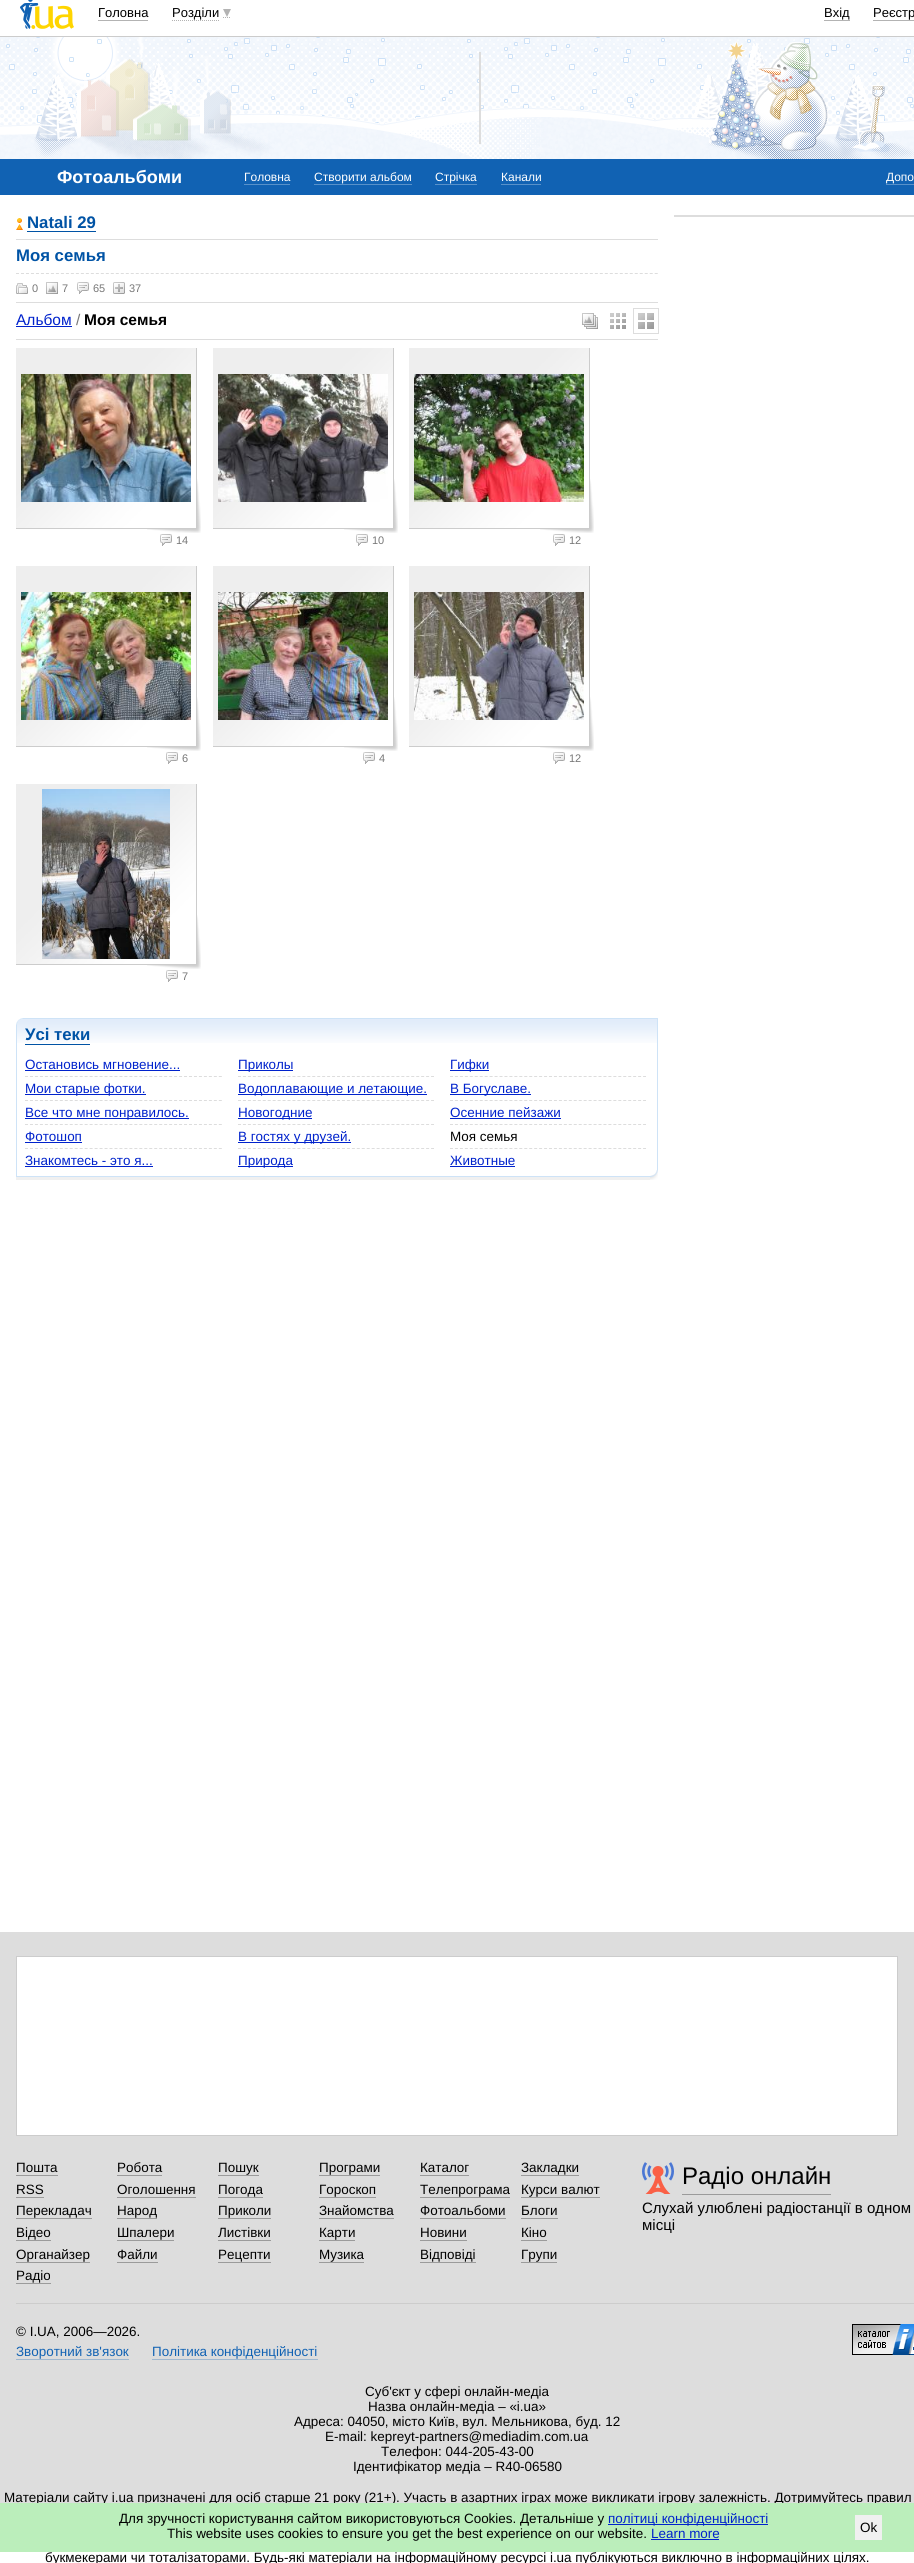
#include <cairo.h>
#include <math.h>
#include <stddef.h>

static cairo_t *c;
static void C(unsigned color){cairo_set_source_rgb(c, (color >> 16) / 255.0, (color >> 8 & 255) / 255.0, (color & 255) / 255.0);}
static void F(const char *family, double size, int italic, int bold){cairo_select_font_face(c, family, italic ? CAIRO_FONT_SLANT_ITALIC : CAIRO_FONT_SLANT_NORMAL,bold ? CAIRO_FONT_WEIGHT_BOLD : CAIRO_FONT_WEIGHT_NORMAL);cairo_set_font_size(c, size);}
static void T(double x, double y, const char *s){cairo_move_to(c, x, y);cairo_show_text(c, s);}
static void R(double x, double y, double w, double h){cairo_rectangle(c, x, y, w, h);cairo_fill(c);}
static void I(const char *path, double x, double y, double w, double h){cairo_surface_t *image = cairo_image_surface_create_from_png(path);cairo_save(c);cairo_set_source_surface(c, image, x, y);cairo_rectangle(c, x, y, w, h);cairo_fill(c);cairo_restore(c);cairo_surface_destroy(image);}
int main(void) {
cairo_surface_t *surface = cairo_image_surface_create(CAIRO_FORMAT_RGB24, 914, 2563);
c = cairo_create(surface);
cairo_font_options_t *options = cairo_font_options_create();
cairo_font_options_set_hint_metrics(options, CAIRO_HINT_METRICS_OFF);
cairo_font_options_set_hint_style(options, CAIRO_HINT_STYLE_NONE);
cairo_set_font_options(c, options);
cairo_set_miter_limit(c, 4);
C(0xffffff);
cairo_paint(c);
C(0xcccccc);
R(0,36,914,1);
I("1.png",20,0,54,29);
F("Liberation Sans",13,0,0);
C(0x000000);
T(98,17,"Головна");
C(0xb3b3b3);
R(98,20,50,1);
cairo_new_path(c);
cairo_move_to(c,172,20.5);
cairo_line_to(c,219,20.5);
cairo_move_to(c,223,17.5);
cairo_line_to(c,231,17.5);
cairo_set_line_width(c,1);
cairo_set_dash(c,(double[]){1,1},2,0);
cairo_stroke(c);
C(0x000000);
T(172,17,"Розділи");
C(0xb3b3b3);
cairo_new_path(c);
cairo_move_to(c,223,9);
cairo_line_to(c,231,9);
cairo_line_to(c,227,17);
cairo_close_path(c);
cairo_fill(c);
C(0x000000);
T(824,17,"Вхід");
C(0xb3b3b3);
R(824,20,26,1);
C(0x000000);
T(873,17,"Реєстр");
C(0xb3b3b3);
R(873,20,41,1);
I("2.png",0,37,914,122);
C(0xdddddd);
R(479,52,2,92);
C(0x1162b3);
R(0,159,914,36);
F("Liberation Sans",18,0,1);
C(0xffffff);
T(57,183,"Фотоальбоми");
F("Liberation Sans",12,0,0);
T(244,181,"Головна");
C(0x5891ca);
R(244,184,46,1);
C(0xffffff);
T(314,181,"Створити альбом");
C(0x5891ca);
R(314,184,98,1);
C(0xffffff);
T(435,181,"Стрічка");
C(0x5891ca);
R(435,184,42,1);
C(0xffffff);
T(501,181,"Канали");
C(0x5891ca);
R(501,184,40,1);
C(0xffffff);
T(886,181,"Допо");
C(0x5891ca);
R(886,184,28,1);
C(0xdddddd);
R(16,239,642,1);
C(0x0053a5);
R(27,231,69,1);
I("3.png",16,218,7,12);
F("Liberation Sans",16.75,0,1);
T(27,228,"Natali 29");
T(16,261,"Моя семья");
cairo_new_path(c);
cairo_move_to(c,16,273.5);
cairo_line_to(c,658,273.5);
C(0xdddddd);
cairo_set_dash(c,(double[]){3,1.99},2,0);
cairo_stroke(c);
R(16,302,642,1);
I("4.png",16,283,12,11);
F("Liberation Sans",11,0,0);
C(0x777777);
T(32,292,"0");
I("5.png",46,282,12,12);
T(62,292,"7");
I("6.png",77,282,12,12);
T(93,292,"65");
I("7.png",113,282,12,12);
T(129,292,"37");
F("Liberation Sans",15.5,0,0);
C(0x0022cc);
T(16,325,"Альбом");
R(16,326,56,1);
C(0x777777);
T(76,325,"/");
F("Liberation Sans",15.5,0,1);
C(0x000000);
T(84,325,"Моя семья");
I("8.png",582,313,16,16);
I("9.png",610,313,16,16);
cairo_rectangle(c,633.5,308.5,25,25);
C(0xdddddd);
cairo_set_dash(c,NULL,0,0);
cairo_stroke(c);
I("10.png",638,313,16,16);
R(16,339,642,1);
I("11.png",16,348,185,185);
I("12.png",21,374,170,128);
I("6.png",160,534,12,12);
F("Liberation Sans",11,0,0);
C(0x777777);
T(176,544,"14");
I("11.png",213,348,185,185);
I("13.png",218,374,170,128);
I("6.png",356,534,12,12);
T(372,544,"10");
I("11.png",409,348,185,185);
I("14.png",414,374,170,128);
I("6.png",553,534,12,12);
T(569,544,"12");
I("11.png",16,566,185,185);
I("15.png",21,592,170,128);
I("6.png",166,752,12,12);
T(182,762,"6");
I("11.png",213,566,185,185);
I("16.png",218,592,170,128);
I("6.png",363,752,12,12);
T(379,762,"4");
I("11.png",409,566,185,185);
I("17.png",414,592,170,128);
I("6.png",553,752,12,12);
T(569,762,"12");
I("11.png",16,784,185,185);
I("18.png",42,789,128,170);
I("6.png",166,970,12,12);
T(182,980,"7");
C(0xf0f0f0);
R(16,1177,642,3);
I("20.png",17,1019,640,24);
cairo_rectangle(c,16.5,1018.5,641,158);
C(0xcee3f7);
cairo_stroke(c);
I("19.png",16,1018,7,7);
F("Liberation Sans",16.75,0,1);
C(0x0053a5);
T(25,1040,"Усі теки");
R(25,1044,65,1);
cairo_new_path(c);
cairo_move_to(c,25,1076.5);
cairo_line_to(c,222,1076.5);
C(0xdddddd);
cairo_set_dash(c,(double[]){3,1.97},2,0);
cairo_stroke(c);
F("Liberation Sans",13.45,0,0);
C(0x0022cc);
T(25,1069,"Остановись мгновение...");
R(25,1070,155,1);
cairo_new_path(c);
cairo_move_to(c,238,1076.5);
cairo_line_to(c,434,1076.5);
C(0xdddddd);
cairo_set_dash(c,(double[]){3,1.95},2,0);
cairo_stroke(c);
C(0x0022cc);
R(238,1070,55,1);
T(238,1069,"Приколы");
cairo_new_path(c);
cairo_move_to(c,450,1076.5);
cairo_line_to(c,646,1076.5);
C(0xdddddd);
cairo_stroke(c);
C(0x0022cc);
R(450,1070,39,1);
T(450,1069,"Гифки");
cairo_new_path(c);
cairo_move_to(c,25,1100.5);
cairo_line_to(c,222,1100.5);
C(0xdddddd);
cairo_set_dash(c,(double[]){3,1.97},2,0);
cairo_stroke(c);
C(0x0022cc);
R(25,1094,121,1);
T(25,1093,"Мои старые фотки.");
cairo_new_path(c);
cairo_move_to(c,238,1100.5);
cairo_line_to(c,434,1100.5);
C(0xdddddd);
cairo_set_dash(c,(double[]){3,1.95},2,0);
cairo_stroke(c);
C(0x0022cc);
R(238,1094,189,1);
T(238,1093,"Водоплавающие и летающие.");
cairo_new_path(c);
cairo_move_to(c,450,1100.5);
cairo_line_to(c,646,1100.5);
C(0xdddddd);
cairo_stroke(c);
C(0x0022cc);
R(450,1094,81,1);
T(450,1093,"В Богуславе.");
cairo_new_path(c);
cairo_move_to(c,25,1124.5);
cairo_line_to(c,222,1124.5);
C(0xdddddd);
cairo_set_dash(c,(double[]){3,1.97},2,0);
cairo_stroke(c);
C(0x0022cc);
R(25,1118,164,1);
T(25,1117,"Все что мне понравилось.");
cairo_new_path(c);
cairo_move_to(c,238,1124.5);
cairo_line_to(c,434,1124.5);
C(0xdddddd);
cairo_set_dash(c,(double[]){3,1.95},2,0);
cairo_stroke(c);
C(0x0022cc);
R(238,1118,74,1);
T(238,1117,"Новогодние");
cairo_new_path(c);
cairo_move_to(c,450,1124.5);
cairo_line_to(c,646,1124.5);
C(0xdddddd);
cairo_stroke(c);
C(0x0022cc);
T(450,1117,"Осенние пейзажи");
R(450,1118,111,1);
cairo_new_path(c);
cairo_move_to(c,25,1148.5);
cairo_line_to(c,222,1148.5);
C(0xdddddd);
cairo_set_dash(c,(double[]){3,1.97},2,0);
cairo_stroke(c);
C(0x0022cc);
T(25,1141,"Фотошоп");
R(25,1142,57,1);
cairo_new_path(c);
cairo_move_to(c,238,1148.5);
cairo_line_to(c,434,1148.5);
C(0xdddddd);
cairo_set_dash(c,(double[]){3,1.95},2,0);
cairo_stroke(c);
C(0x0022cc);
R(238,1142,113,1);
T(238,1141,"В гостях у друзей.");
cairo_new_path(c);
cairo_move_to(c,450,1148.5);
cairo_line_to(c,646,1148.5);
C(0xdddddd);
cairo_stroke(c);
C(0x000000);
T(450,1141,"Моя семья");
C(0x0022cc);
T(25,1165,"Знакомтесь - это я...");
R(25,1166,128,1);
R(238,1166,55,1);
T(238,1165,"Природа");
T(450,1165,"Животные");
R(450,1166,65,1);
I("21.png",650,1170,8,10);
C(0xdddddd);
R(674,215,240,2);
R(0,1932,914,571);
C(0xffffff);
cairo_rectangle(c,16.5,1956.5,881,179);
cairo_fill_preserve(c);
C(0xcccccc);
cairo_set_dash(c,NULL,0,0);
cairo_stroke(c);
C(0x000000);
T(16,2172,"Пошта");
C(0x9b9b9b);
R(16,2175,42,1);
C(0x000000);
T(117,2172,"Робота");
C(0x9b9b9b);
R(117,2175,45,1);
C(0x000000);
T(218,2172,"Пошук");
C(0x9b9b9b);
R(218,2175,41,1);
C(0x000000);
T(319,2172,"Програми");
C(0x9b9b9b);
R(319,2175,61,1);
C(0x000000);
T(420,2172,"Каталог");
C(0x9b9b9b);
R(420,2175,49,1);
C(0x000000);
T(521,2172,"Закладки");
C(0x9b9b9b);
R(521,2175,58,1);
C(0x000000);
T(16,2194,"RSS");
C(0x9b9b9b);
R(16,2197,28,1);
C(0x000000);
T(117,2194,"Оголошення");
C(0x9b9b9b);
R(117,2197,79,1);
C(0x000000);
T(218,2194,"Погода");
C(0x9b9b9b);
R(218,2197,45,1);
C(0x000000);
T(319,2194,"Гороскоп");
C(0x9b9b9b);
R(319,2197,57,1);
C(0x000000);
T(420,2194,"Телепрограма");
C(0x9b9b9b);
R(420,2197,90,1);
C(0x000000);
T(521,2194,"Курси валют");
C(0x9b9b9b);
R(521,2197,79,1);
C(0x000000);
T(16,2215,"Перекладач");
C(0x9b9b9b);
R(16,2218,76,1);
C(0x000000);
T(117,2215,"Народ");
C(0x9b9b9b);
R(117,2218,40,1);
C(0x000000);
T(218,2215,"Приколи");
C(0x9b9b9b);
R(218,2218,53,1);
C(0x000000);
T(319,2215,"Знайомства");
C(0x9b9b9b);
R(319,2218,75,1);
C(0x000000);
T(420,2215,"Фотоальбоми");
C(0x9b9b9b);
R(420,2218,86,1);
C(0x000000);
T(521,2215,"Блоги");
C(0x9b9b9b);
R(521,2218,37,1);
C(0x000000);
T(16,2237,"Відео");
C(0x9b9b9b);
R(16,2240,35,1);
C(0x000000);
T(117,2237,"Шпалери");
C(0x9b9b9b);
R(117,2240,57,1);
C(0x000000);
T(218,2237,"Листівки");
C(0x9b9b9b);
R(218,2240,53,1);
C(0x000000);
T(319,2237,"Карти");
C(0x9b9b9b);
R(319,2240,36,1);
C(0x000000);
T(420,2237,"Новини");
C(0x9b9b9b);
R(420,2240,47,1);
C(0x000000);
T(521,2237,"Кіно");
C(0x9b9b9b);
R(521,2240,26,1);
C(0x000000);
T(16,2259,"Органайзер");
C(0x9b9b9b);
R(16,2262,74,1);
C(0x000000);
T(117,2259,"Файли");
C(0x9b9b9b);
R(117,2262,41,1);
C(0x000000);
T(218,2259,"Рецепти");
C(0x9b9b9b);
R(218,2262,53,1);
C(0x000000);
T(319,2259,"Музика");
C(0x9b9b9b);
R(319,2262,45,1);
C(0x000000);
T(420,2259,"Відповіді");
C(0x9b9b9b);
R(420,2262,56,1);
C(0x000000);
T(521,2259,"Групи");
C(0x9b9b9b);
R(521,2262,36,1);
C(0x000000);
T(16,2280,"Радіо");
C(0x9b9b9b);
R(16,2283,35,1);
R(682,2194,149,1);
I("22.png",642,2162,32,32);
F("Liberation Sans",24,0,0);
C(0x000000);
T(682,2184,"Радіо онлайн");
F("Liberation Sans",15,0,0);
T(642,2213,"Слухай улюблені радіостанції в одном");
T(642,2230,"місці");
C(0xcccccc);
R(16,2303,898,1);
F("Liberation Sans",13.45,0,0);
C(0x000000);
T(16,2336,"© I.UA, 2006—2026.");
I("23.png",852,2324,62,31);
C(0x1162b3);
T(16,2356,"Зворотний зв'язок");
C(0xa0b8d0);
R(16,2359,113,1);
C(0x1162b3);
T(152,2356,"Політика конфіденційності");
C(0xa0b8d0);
R(152,2359,166,1);
C(0x000000);
T(365,2396,"Суб'єкт у сфері онлайн-медіа");
T(368,2411,"Назва онлайн-медіа – «i.ua»");
T(294,2426,"Адреса: 04050, місто Київ, вул. Мельникова, буд. 12");
T(325,2441,"E-mail: kepreyt-partners@mediadim.com.ua");
T(381,2456,"Телефон: 044-205-43-00");
T(353,2471,"Ідентифікатор медіа – R40-06580");
T(4,2502,"Матеріали сайту i.ua призначені для осіб старше 21 року (21+). Участь в азартних іграх може викликати ігрову залежність. Дотримуйтесь правил");
T(45,2562,"букмекерами чи тоталізаторами. Будь-які матеріали на інформаційному ресурсі i.ua публікуються виключно в інформаційних цілях.");
C(0xbbeebb);
R(0,2503,914,49);
C(0x000000);
T(119,2523,"Для зручності користування сайтом використовуються Cookies. Детальніше у");
C(0x0022cc);
R(608,2524,160,1);
T(608,2523,"політиці конфіденційності");
C(0x000000);
T(167,2538,"This website uses cookies to ensure you get the best experience on our website.");
C(0x0022cc);
T(651,2538,"Learn more");
R(651,2539,68,1);
C(0xf0f0f0);
R(855,2515,27,25);
C(0x000000);
T(860,2532,"Ok");
cairo_surface_write_to_png(surface, "o.png");
cairo_font_options_destroy(options);
cairo_destroy(c);
cairo_surface_destroy(surface);
return 0;
}
